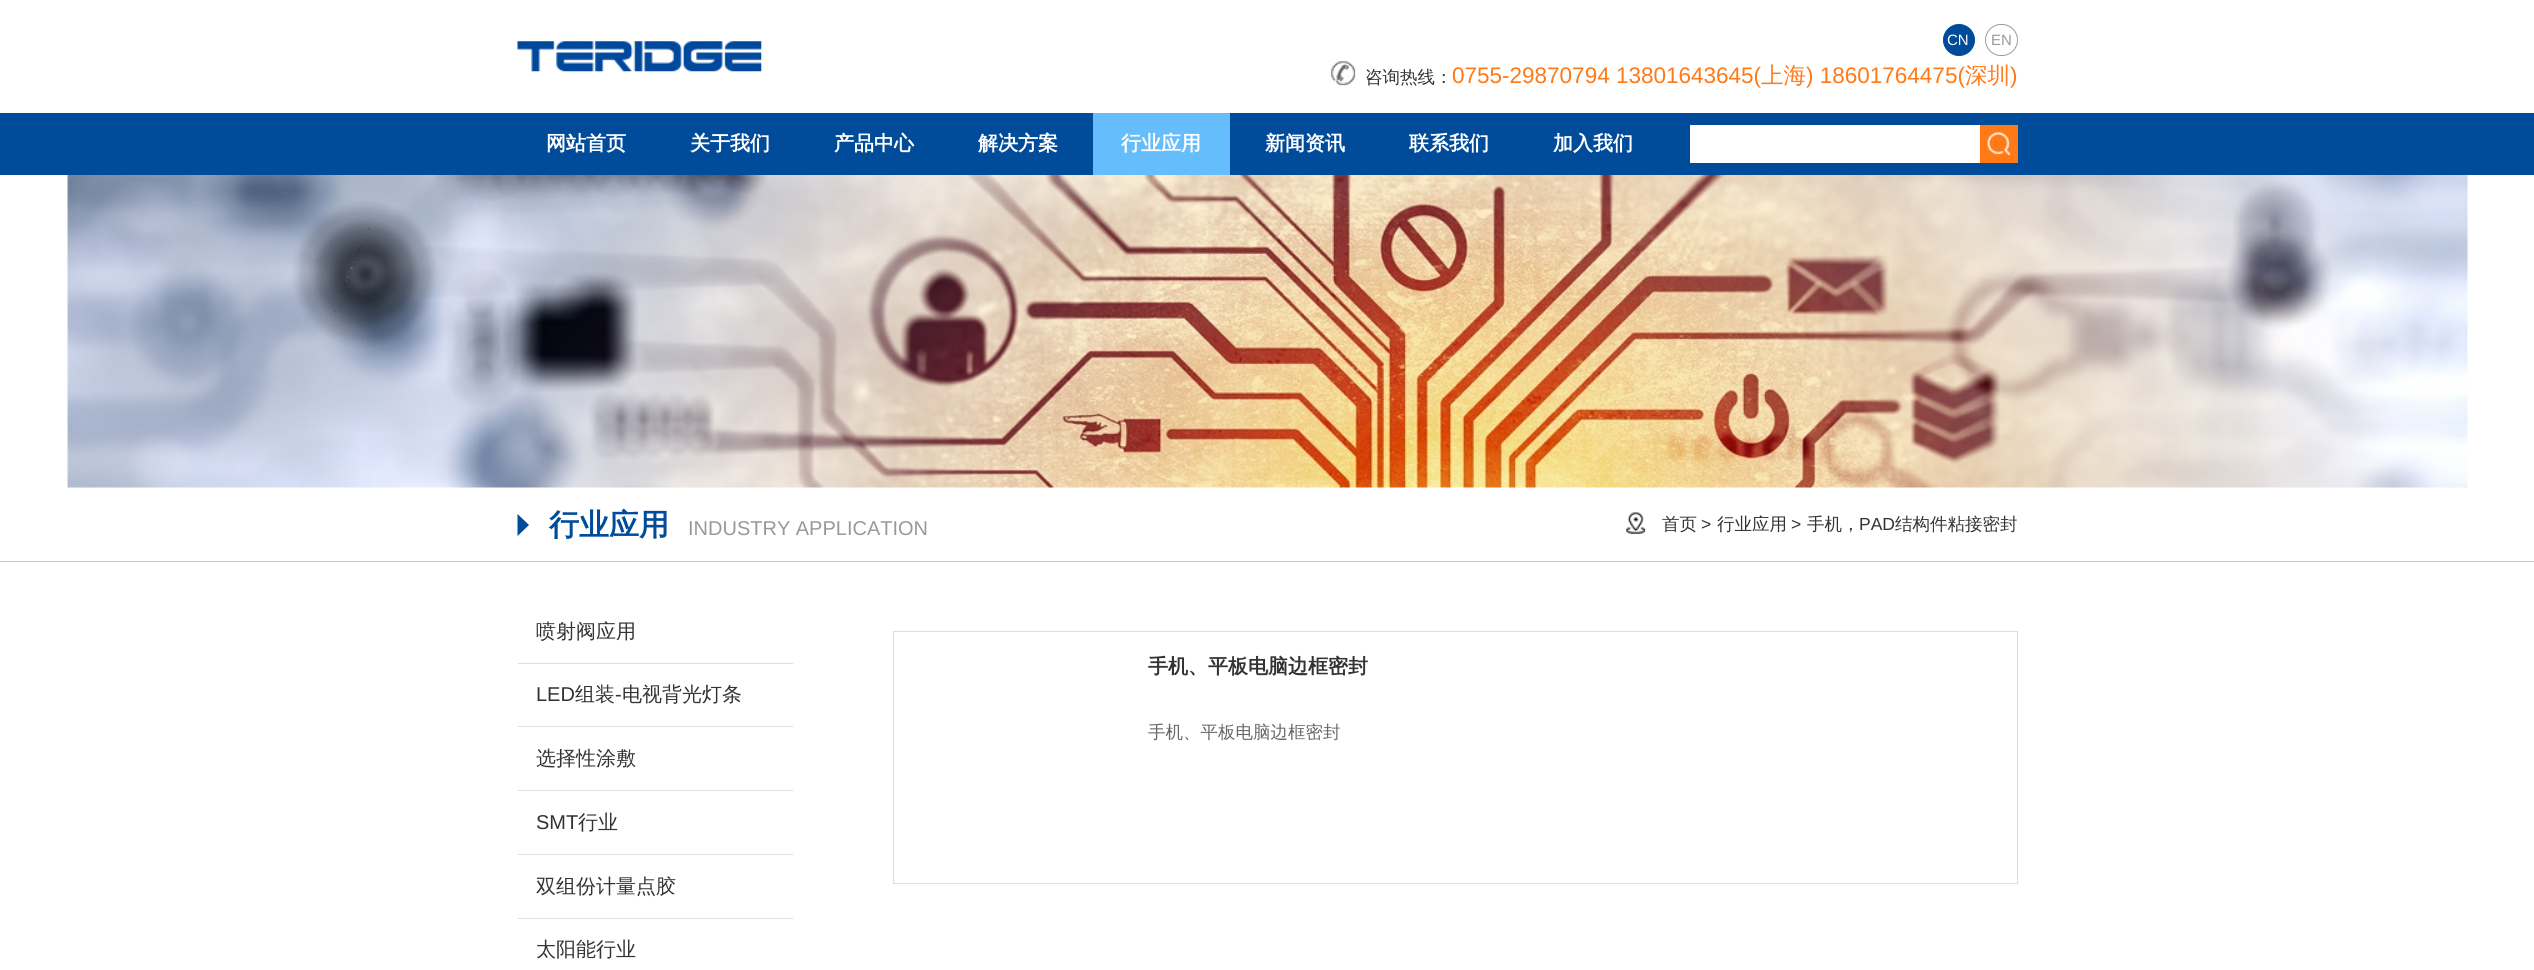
#include <cairo.h>
#include <math.h>
#include <stddef.h>

static cairo_t *c;
static void C(unsigned color){cairo_set_source_rgb(c, (color >> 16) / 255.0, (color >> 8 & 255) / 255.0, (color & 255) / 255.0);}
static void F(const char *family, double size, int italic, int bold){cairo_select_font_face(c, family, italic ? CAIRO_FONT_SLANT_ITALIC : CAIRO_FONT_SLANT_NORMAL,bold ? CAIRO_FONT_WEIGHT_BOLD : CAIRO_FONT_WEIGHT_NORMAL);cairo_set_font_size(c, size);}
static void T(double x, double y, const char *s){cairo_move_to(c, x, y);cairo_show_text(c, s);}
static void R(double x, double y, double w, double h){cairo_rectangle(c, x, y, w, h);cairo_fill(c);}
static void Q(double x, double y, double w, double h, double r){cairo_new_sub_path(c);cairo_arc(c, x + w - r, y + h - r, r, 0, M_PI / 2);cairo_arc(c, x + r, y + h - r, r, M_PI / 2, M_PI);cairo_arc(c, x + r, y + r, r, M_PI, 1.5 * M_PI);cairo_arc(c, x + w - r, y + r, r, 1.5 * M_PI, 2 * M_PI);cairo_close_path(c);}
static void I(const char *path, double x, double y, double w, double h){cairo_surface_t *image = cairo_image_surface_create_from_png(path);cairo_save(c);cairo_set_source_surface(c, image, x, y);cairo_rectangle(c, x, y, w, h);cairo_fill(c);cairo_restore(c);cairo_surface_destroy(image);}
int main(void) {
cairo_surface_t *surface = cairo_image_surface_create(CAIRO_FORMAT_RGB24, 2534, 970);
c = cairo_create(surface);
cairo_font_options_t *options = cairo_font_options_create();
cairo_font_options_set_hint_metrics(options, CAIRO_HINT_METRICS_OFF);
cairo_font_options_set_hint_style(options, CAIRO_HINT_STYLE_NONE);
cairo_set_font_options(c, options);
cairo_set_miter_limit(c, 4);
C(0xffffff);
cairo_paint(c);
I("1.png",517,41,245,31);
C(0x004b9a);
cairo_arc(c,1959,40,15.5,0,2 * M_PI);
cairo_fill_preserve(c);
cairo_set_line_width(c,1);
cairo_stroke(c);
F("Liberation Sans",15,0,0);
C(0xffffff);
T(1947,45,"CN");
Q(1985.5,24.5,32,31,15.5);
C(0x9b9b9b);
cairo_stroke(c);
C(0x999999);
T(1991,45,"EN");
I("2.png",1331,61,25,25);
F("WenQuanYi Zen Hei Medium",17.5,0,0);
C(0x333333);
T(1365,83,"咨询热线：");
F("Liberation Sans",22.5,0,0);
C(0xff7916);
T(1452,83,"0755-29870794 13801643645(");
F("WenQuanYi Zen Hei Medium",22.5,0,0);
T(1761,83,"上海");
F("Liberation Sans",22.5,0,0);
T(1806,83,") 18601764475(");
F("WenQuanYi Zen Hei Medium",22.5,0,0);
T(1965,83,"深圳");
F("Liberation Sans",22.5,0,0);
T(2010,83,")");
C(0x004b9a);
R(0,113,2534,62);
F("WenQuanYi Zen Hei",20,0,1);
C(0xffffff);
T(546,150,"网站首页");
T(690,150,"关于我们");
T(834,150,"产品中心");
T(978,150,"解决方案");
C(0x65bdfc);
R(1093,113,137,62);
C(0xffffff);
T(1121,150,"行业应用");
T(1265,150,"新闻资讯");
T(1409,150,"联系我们");
T(1553,150,"加入我们");
R(1690,125,290,38);
C(0xff7916);
R(1980,125,38,38);
I("3.png",1987,132,24,24);
I("4.png",67,175,2401,313);
C(0xcccccc);
R(0,561,2534,1);
C(0x004b9a);
cairo_new_path(c);
cairo_move_to(c,517.5,536);
cairo_line_to(c,517.5,514);
cairo_line_to(c,529,525);
cairo_close_path(c);
cairo_fill(c);
F("WenQuanYi Zen Hei",30,0,1);
T(549,535,"行业应用");
F("Liberation Sans",20,0,0);
C(0x999999);
T(688,535,"INDUSTRY APPLICATION");
I("5.png",1626,512,20,22);
F("WenQuanYi Zen Hei Medium",17.5,0,0);
C(0x333333);
T(1662,530,"首页");
F("Liberation Sans",17.5,0,0);
T(1701,530,">");
F("WenQuanYi Zen Hei Medium",17.5,0,0);
T(1717,530,"行业应用");
F("Liberation Sans",17.5,0,0);
T(1791,530,">");
F("WenQuanYi Zen Hei Medium",17.5,0,0);
T(1807,530,"手机，");
F("Liberation Sans",17.5,0,0);
T(1859,530,"PAD");
F("WenQuanYi Zen Hei Medium",17.5,0,0);
T(1895,530,"结构件粘接密封");
C(0xdddddd);
R(518,663,275,1);
F("WenQuanYi Zen Hei Medium",20,0,0);
C(0x333333);
T(536,638,"喷射阀应用");
C(0xdddddd);
R(518,726,275,1);
F("Liberation Sans",20,0,0);
C(0x333333);
T(536,701,"LED");
F("WenQuanYi Zen Hei Medium",20,0,0);
T(575,701,"组装");
F("Liberation Sans",20,0,0);
T(615,701,"-");
F("WenQuanYi Zen Hei Medium",20,0,0);
T(622,701,"电视背光灯条");
C(0xdddddd);
R(518,790,275,1);
C(0x333333);
T(536,765,"选择性涂敷");
C(0xdddddd);
R(518,854,275,1);
F("Liberation Sans",20,0,0);
C(0x333333);
T(536,829,"SMT");
F("WenQuanYi Zen Hei Medium",20,0,0);
T(578,829,"行业");
C(0xdddddd);
R(518,918,275,1);
C(0x333333);
T(536,893,"双组份计量点胶");
T(536,956,"太阳能行业");
cairo_rectangle(c,893.5,631.5,1124,252);
C(0xdddddd);
cairo_stroke(c);
F("WenQuanYi Zen Hei",20,0,1);
C(0x333333);
T(1148,673,"手机、平板电脑边框密封");
F("WenQuanYi Zen Hei Medium",17.5,0,0);
C(0x666666);
T(1148,738,"手机、平板电脑边框密封");
cairo_surface_write_to_png(surface, "o.png");
cairo_font_options_destroy(options);
cairo_destroy(c);
cairo_surface_destroy(surface);
return 0;
}
